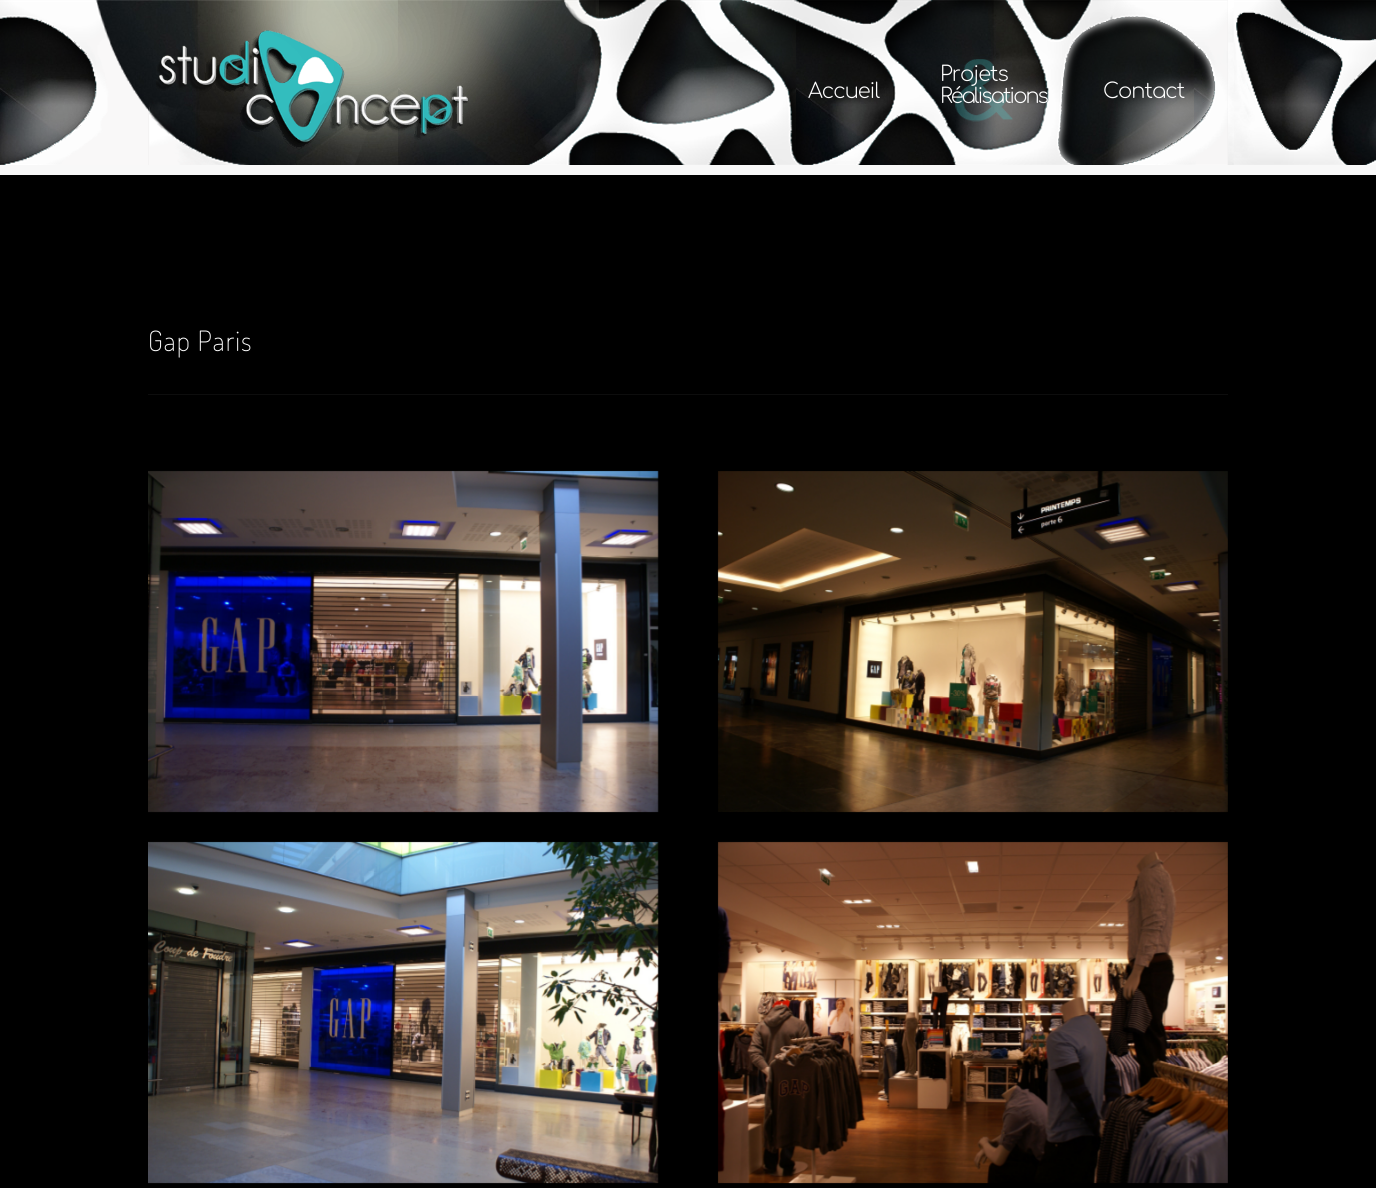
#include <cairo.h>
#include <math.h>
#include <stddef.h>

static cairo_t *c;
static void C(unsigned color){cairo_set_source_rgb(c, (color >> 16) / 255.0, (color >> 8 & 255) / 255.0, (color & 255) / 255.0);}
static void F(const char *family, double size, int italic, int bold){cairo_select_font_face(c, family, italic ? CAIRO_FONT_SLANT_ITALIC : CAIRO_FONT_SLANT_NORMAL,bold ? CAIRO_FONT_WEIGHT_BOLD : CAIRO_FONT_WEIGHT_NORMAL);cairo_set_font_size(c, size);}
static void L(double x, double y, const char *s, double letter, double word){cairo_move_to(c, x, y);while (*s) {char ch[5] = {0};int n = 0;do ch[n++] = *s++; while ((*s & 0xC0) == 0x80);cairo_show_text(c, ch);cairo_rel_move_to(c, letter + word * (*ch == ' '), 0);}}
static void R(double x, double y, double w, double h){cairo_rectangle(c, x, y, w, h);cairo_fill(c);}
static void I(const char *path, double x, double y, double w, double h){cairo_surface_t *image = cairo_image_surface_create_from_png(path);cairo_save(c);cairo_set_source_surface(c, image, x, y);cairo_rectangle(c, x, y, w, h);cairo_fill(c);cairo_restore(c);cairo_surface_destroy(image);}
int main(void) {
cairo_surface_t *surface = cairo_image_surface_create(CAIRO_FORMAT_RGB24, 1376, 1188);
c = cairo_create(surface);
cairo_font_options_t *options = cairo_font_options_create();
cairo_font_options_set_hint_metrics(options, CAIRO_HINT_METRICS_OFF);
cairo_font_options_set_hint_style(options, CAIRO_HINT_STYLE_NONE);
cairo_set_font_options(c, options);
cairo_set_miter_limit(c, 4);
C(0x000000);
cairo_paint(c);
I("1.png",0,0,1376,165);
C(0xf8f8f8);
R(0,165,1376,10);
I("2.png",0,0,148,165);
I("3.png",148,0,1080,165);
I("4.png",156,0,443,165);
I("5.png",1228,0,148,165);
F("Comfortaa Light",21,0,0);
C(0xffffff);
L(808,98,"Accueil",-1,0);
I("6.png",955,59,58,63);
L(940,81,"Projets",-1,0);
L(940,103,"Réalisations",-2,0);
L(1103,98,"Contact",-1,0);
F("Dosis ExtraLight",28,0,0);
L(148,351,"Gap Paris",1,0);
C(0x0d0d0d);
R(148,394,1080,1);
I("7.png",148,470,511,343);
I("8.png",148,841,511,343);
I("9.png",717,471,511,342);
I("10.png",717,841,511,343);
cairo_surface_write_to_png(surface, "o.png");
cairo_font_options_destroy(options);
cairo_destroy(c);
cairo_surface_destroy(surface);
return 0;
}
